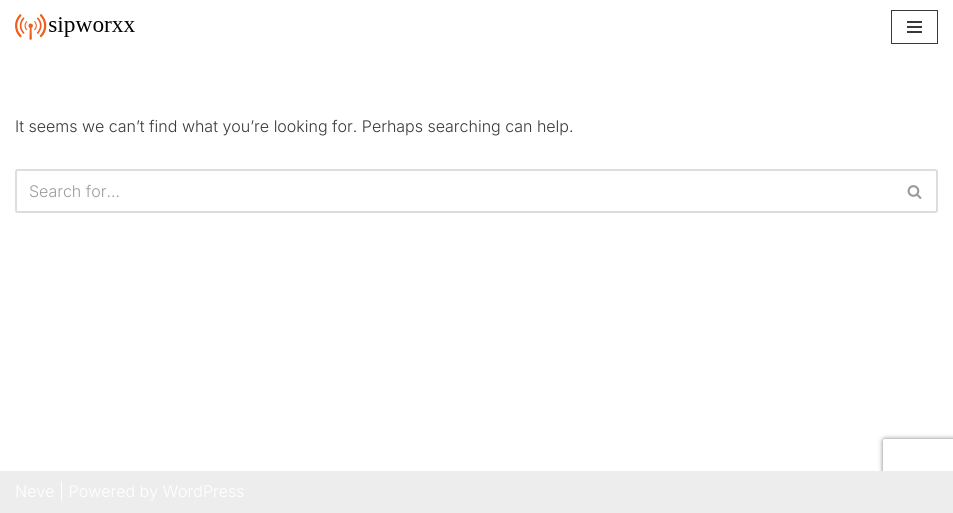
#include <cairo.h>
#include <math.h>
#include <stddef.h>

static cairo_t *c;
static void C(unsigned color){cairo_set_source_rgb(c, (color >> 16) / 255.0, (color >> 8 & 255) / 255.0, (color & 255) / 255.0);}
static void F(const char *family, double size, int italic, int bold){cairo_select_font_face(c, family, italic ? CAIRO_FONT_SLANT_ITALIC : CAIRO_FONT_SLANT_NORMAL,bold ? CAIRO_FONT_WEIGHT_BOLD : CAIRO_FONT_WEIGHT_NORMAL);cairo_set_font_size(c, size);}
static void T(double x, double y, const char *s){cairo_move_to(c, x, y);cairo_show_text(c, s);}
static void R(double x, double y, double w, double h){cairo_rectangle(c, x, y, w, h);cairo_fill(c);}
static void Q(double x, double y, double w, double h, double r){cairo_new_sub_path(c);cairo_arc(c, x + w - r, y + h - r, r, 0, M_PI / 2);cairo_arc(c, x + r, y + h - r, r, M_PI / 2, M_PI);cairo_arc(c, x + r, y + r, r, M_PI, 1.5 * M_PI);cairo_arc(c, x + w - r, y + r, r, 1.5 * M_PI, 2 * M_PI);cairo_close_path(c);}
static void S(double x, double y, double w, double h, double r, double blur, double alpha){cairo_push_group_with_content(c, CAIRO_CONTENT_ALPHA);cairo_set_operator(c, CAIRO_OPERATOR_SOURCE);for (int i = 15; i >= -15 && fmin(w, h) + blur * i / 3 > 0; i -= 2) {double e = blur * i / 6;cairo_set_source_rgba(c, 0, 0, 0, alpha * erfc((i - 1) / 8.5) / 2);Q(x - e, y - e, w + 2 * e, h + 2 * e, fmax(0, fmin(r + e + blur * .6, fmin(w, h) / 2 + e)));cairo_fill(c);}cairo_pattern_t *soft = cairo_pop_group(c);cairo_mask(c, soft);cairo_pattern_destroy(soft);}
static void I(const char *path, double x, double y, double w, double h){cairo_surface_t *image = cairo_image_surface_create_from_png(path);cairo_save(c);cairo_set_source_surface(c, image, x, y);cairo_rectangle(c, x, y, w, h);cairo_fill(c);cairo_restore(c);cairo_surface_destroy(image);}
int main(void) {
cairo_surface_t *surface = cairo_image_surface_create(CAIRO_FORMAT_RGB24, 953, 513);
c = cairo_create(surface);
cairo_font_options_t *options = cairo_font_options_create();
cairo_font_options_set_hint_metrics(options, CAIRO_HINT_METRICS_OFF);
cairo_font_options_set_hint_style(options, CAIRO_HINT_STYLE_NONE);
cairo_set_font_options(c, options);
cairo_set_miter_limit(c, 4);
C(0xffffff);
cairo_paint(c);
I("1.png",15,14,120,26);
cairo_rectangle(c,891.5,10.5,46,33);
C(0x393939);
cairo_set_line_width(c,1);
cairo_stroke(c);
R(907,21,15,2);
R(907,26,15,2);
R(907,31,15,2);
F("Inter Light",16,0,0);
T(15,132,"It seems we can’t find what you’re looking for. Perhaps searching can help.");
C(0xdddddd);
cairo_set_fill_rule(c,CAIRO_FILL_RULE_EVEN_ODD);
cairo_new_path(c);
cairo_move_to(c,18,169);
cairo_line_to(c,893,169);
cairo_line_to(c,893,213);
cairo_line_to(c,18,213);
cairo_curve_to(c,16,213,15,212,15,210);
cairo_line_to(c,15,172);
cairo_curve_to(c,15,170,16,169,18,169);
cairo_close_path(c);
cairo_move_to(c,18,171);
cairo_line_to(c,893,171);
cairo_line_to(c,893,211);
cairo_line_to(c,18,211);
cairo_curve_to(c,17,211,17,211,17,210);
cairo_line_to(c,17,172);
cairo_curve_to(c,17,171,17,171,18,171);
cairo_close_path(c);
cairo_fill(c);
C(0x9c9c9c);
T(29,197,"Search for...");
C(0xdddddd);
cairo_new_path(c);
cairo_move_to(c,893,169);
cairo_line_to(c,935,169);
cairo_curve_to(c,937,169,938,170,938,172);
cairo_line_to(c,938,210);
cairo_curve_to(c,938,212,937,213,935,213);
cairo_line_to(c,893,213);
cairo_close_path(c);
cairo_move_to(c,893,171);
cairo_line_to(c,935,171);
cairo_curve_to(c,936,171,936,171,936,172);
cairo_line_to(c,936,210);
cairo_curve_to(c,936,211,936,211,935,211);
cairo_line_to(c,893,211);
cairo_close_path(c);
cairo_fill(c);
I("2.png",907,185,15,14);
cairo_save(c);
cairo_new_path(c);
cairo_move_to(c,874,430);
cairo_line_to(c,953,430);
cairo_line_to(c,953,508);
cairo_line_to(c,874,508);
cairo_close_path(c);
cairo_move_to(c,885,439);
cairo_line_to(c,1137,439);
cairo_curve_to(c,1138,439,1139,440,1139,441);
cairo_line_to(c,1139,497);
cairo_curve_to(c,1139,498,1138,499,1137,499);
cairo_line_to(c,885,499);
cairo_curve_to(c,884,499,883,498,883,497);
cairo_line_to(c,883,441);
cairo_curve_to(c,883,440,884,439,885,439);
cairo_close_path(c);
cairo_clip(c);
C(0x808080);
S(883,439,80,60,2,2.5,1);
cairo_restore(c);
C(0xededed);
R(0,471,953,42);
C(0xffffff);
T(15,497,"Neve | Powered by WordPress");
cairo_surface_write_to_png(surface, "o.png");
cairo_font_options_destroy(options);
cairo_destroy(c);
cairo_surface_destroy(surface);
return 0;
}
